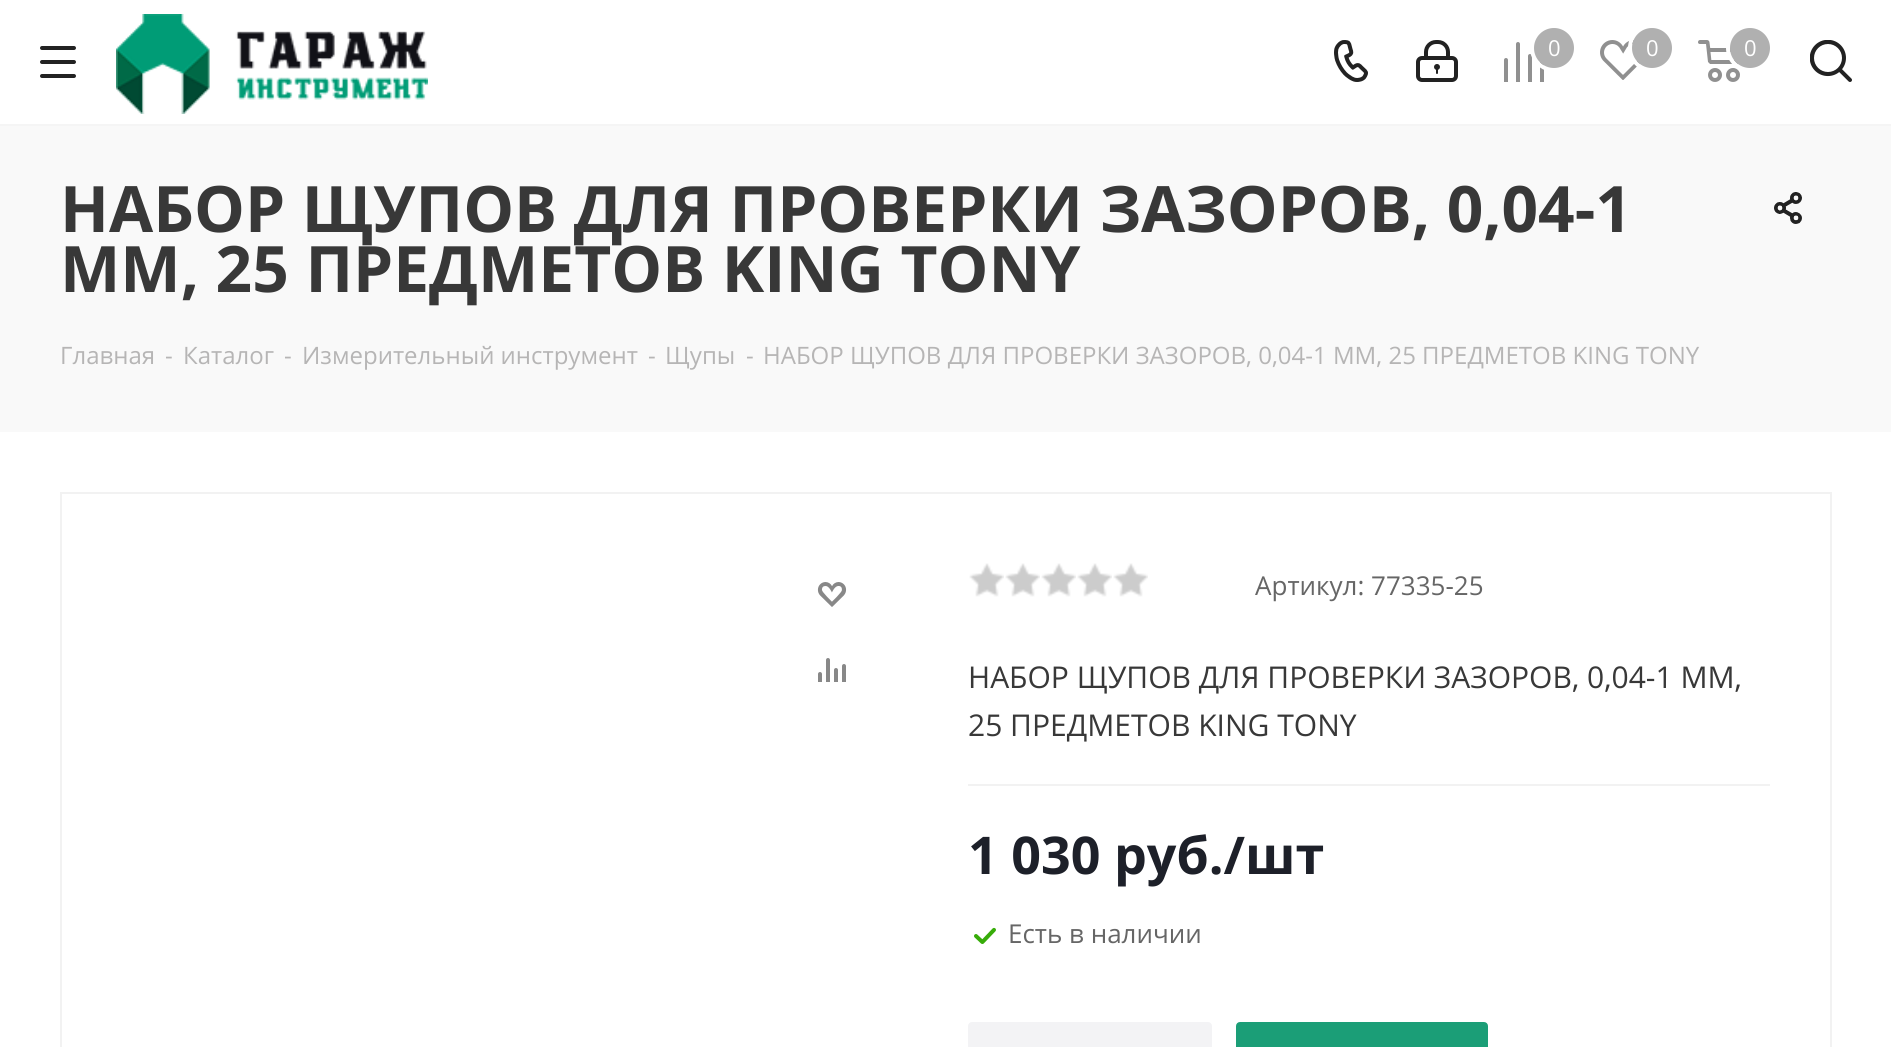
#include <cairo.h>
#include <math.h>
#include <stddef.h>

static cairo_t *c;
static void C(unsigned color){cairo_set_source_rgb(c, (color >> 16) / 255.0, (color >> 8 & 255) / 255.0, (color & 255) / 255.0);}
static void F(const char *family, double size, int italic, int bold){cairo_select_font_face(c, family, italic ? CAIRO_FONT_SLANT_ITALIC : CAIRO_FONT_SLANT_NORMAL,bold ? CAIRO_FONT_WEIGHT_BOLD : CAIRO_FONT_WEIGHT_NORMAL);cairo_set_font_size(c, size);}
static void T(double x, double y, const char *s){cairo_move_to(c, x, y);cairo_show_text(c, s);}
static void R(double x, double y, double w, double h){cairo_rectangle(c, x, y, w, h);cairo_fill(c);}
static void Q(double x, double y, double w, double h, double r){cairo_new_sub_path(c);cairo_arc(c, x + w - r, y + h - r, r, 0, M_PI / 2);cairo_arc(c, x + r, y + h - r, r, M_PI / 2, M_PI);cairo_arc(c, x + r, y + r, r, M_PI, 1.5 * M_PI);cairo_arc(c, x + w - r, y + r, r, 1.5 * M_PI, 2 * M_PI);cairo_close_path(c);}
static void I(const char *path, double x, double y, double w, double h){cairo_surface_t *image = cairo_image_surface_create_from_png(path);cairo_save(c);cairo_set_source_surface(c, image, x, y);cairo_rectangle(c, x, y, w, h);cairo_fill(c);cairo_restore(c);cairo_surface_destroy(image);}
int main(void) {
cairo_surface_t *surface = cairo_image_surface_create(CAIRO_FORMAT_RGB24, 1891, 1047);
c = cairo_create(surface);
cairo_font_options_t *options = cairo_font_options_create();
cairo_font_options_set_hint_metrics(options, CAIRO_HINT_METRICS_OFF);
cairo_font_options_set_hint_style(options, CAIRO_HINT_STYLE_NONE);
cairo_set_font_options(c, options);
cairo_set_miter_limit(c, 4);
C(0xffffff);
cairo_paint(c);
C(0xf5f5f5);
R(0,124,1891,2);
I("1.png",40,46,36,32);
I("2.png",116,14,312,100);
I("3.png",1334,40,34,42);
I("4.png",1416,40,42,42);
I("5.png",1504,42,40,40);
cairo_arc(c,1554,48,22,0,2 * M_PI);
C(0xffffff);
cairo_set_line_width(c,4);
cairo_stroke(c);
C(0xb0b0b0);
cairo_arc(c,1554,48,20,0,2 * M_PI);
cairo_fill(c);
F("Open Sans",22,0,0);
C(0xffffff);
T(1548,56,"0");
I("6.png",1600,40,40,40);
cairo_arc(c,1652,48,22,0,2 * M_PI);
cairo_stroke(c);
C(0xb0b0b0);
cairo_arc(c,1652,48,20,0,2 * M_PI);
cairo_fill(c);
C(0xffffff);
T(1646,56,"0");
I("7.png",1698,40,42,42);
cairo_arc(c,1750,48,22,0,2 * M_PI);
cairo_stroke(c);
C(0xb0b0b0);
cairo_arc(c,1750,48,20,0,2 * M_PI);
cairo_fill(c);
C(0xffffff);
T(1744,56,"0");
I("8.png",1810,40,42,42);
C(0xf9f9f9);
R(0,126,1891,306);
F("Open Sans",64,0,1);
C(0x383838);
T(60,232,"НАБОР ЩУПОВ ДЛЯ ПРОВЕРКИ ЗАЗОРОВ, 0,04-1");
T(60,292,"ММ, 25 ПРЕДМЕТОВ KING TONY");
I("9.png",1774,192,28,32);
F("Open Sans",24,0,0);
C(0xb6b5b5);
T(60,364,"Главная");
T(165,364,"-");
T(183,364,"Каталог");
T(284,364,"-");
T(302,364,"Измерительный инструмент");
T(648,364,"-");
T(665,364,"Щупы");
T(746,364,"-");
T(763,364,"НАБОР ЩУПОВ ДЛЯ ПРОВЕРКИ ЗАЗОРОВ, 0,04-1 ММ, 25 ПРЕДМЕТОВ KING TONY");
cairo_rectangle(c,61,493,1770,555);
C(0xf2f2f2);
cairo_set_line_width(c,2);
cairo_stroke(c);
I("10.png",817,582,30,25);
I("11.png",818,658,28,24);
R(968,784,802,2);
I("12.png",969,563,35,34);
I("12.png",1005,563,35,34);
I("12.png",1041,563,35,34);
I("12.png",1077,563,35,34);
I("12.png",1113,563,35,34);
F("Open Sans",26,0,0);
C(0x666666);
T(1255,595,"Артикул: 77335-25");
F("Open Sans",30,0,0);
C(0x383838);
T(968,688,"НАБОР ЩУПОВ ДЛЯ ПРОВЕРКИ ЗАЗОРОВ, 0,04-1 ММ,");
T(968,736,"25 ПРЕДМЕТОВ KING TONY");
F("Open Sans",52,0,1);
C(0x1d2029);
T(968,874,"1 030 руб./шт");
I("13.png",974,927,22,17);
F("Open Sans",26,0,0);
C(0x666666);
T(1008,943,"Есть в наличии");
C(0xf3f3f5);
Q(969,1023,242,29,3);
cairo_fill_preserve(c);
cairo_stroke(c);
C(0x1b9e77);
Q(1237,1023,250,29,3);
cairo_fill_preserve(c);
cairo_stroke(c);
cairo_surface_write_to_png(surface, "o.png");
cairo_font_options_destroy(options);
cairo_destroy(c);
cairo_surface_destroy(surface);
return 0;
}
